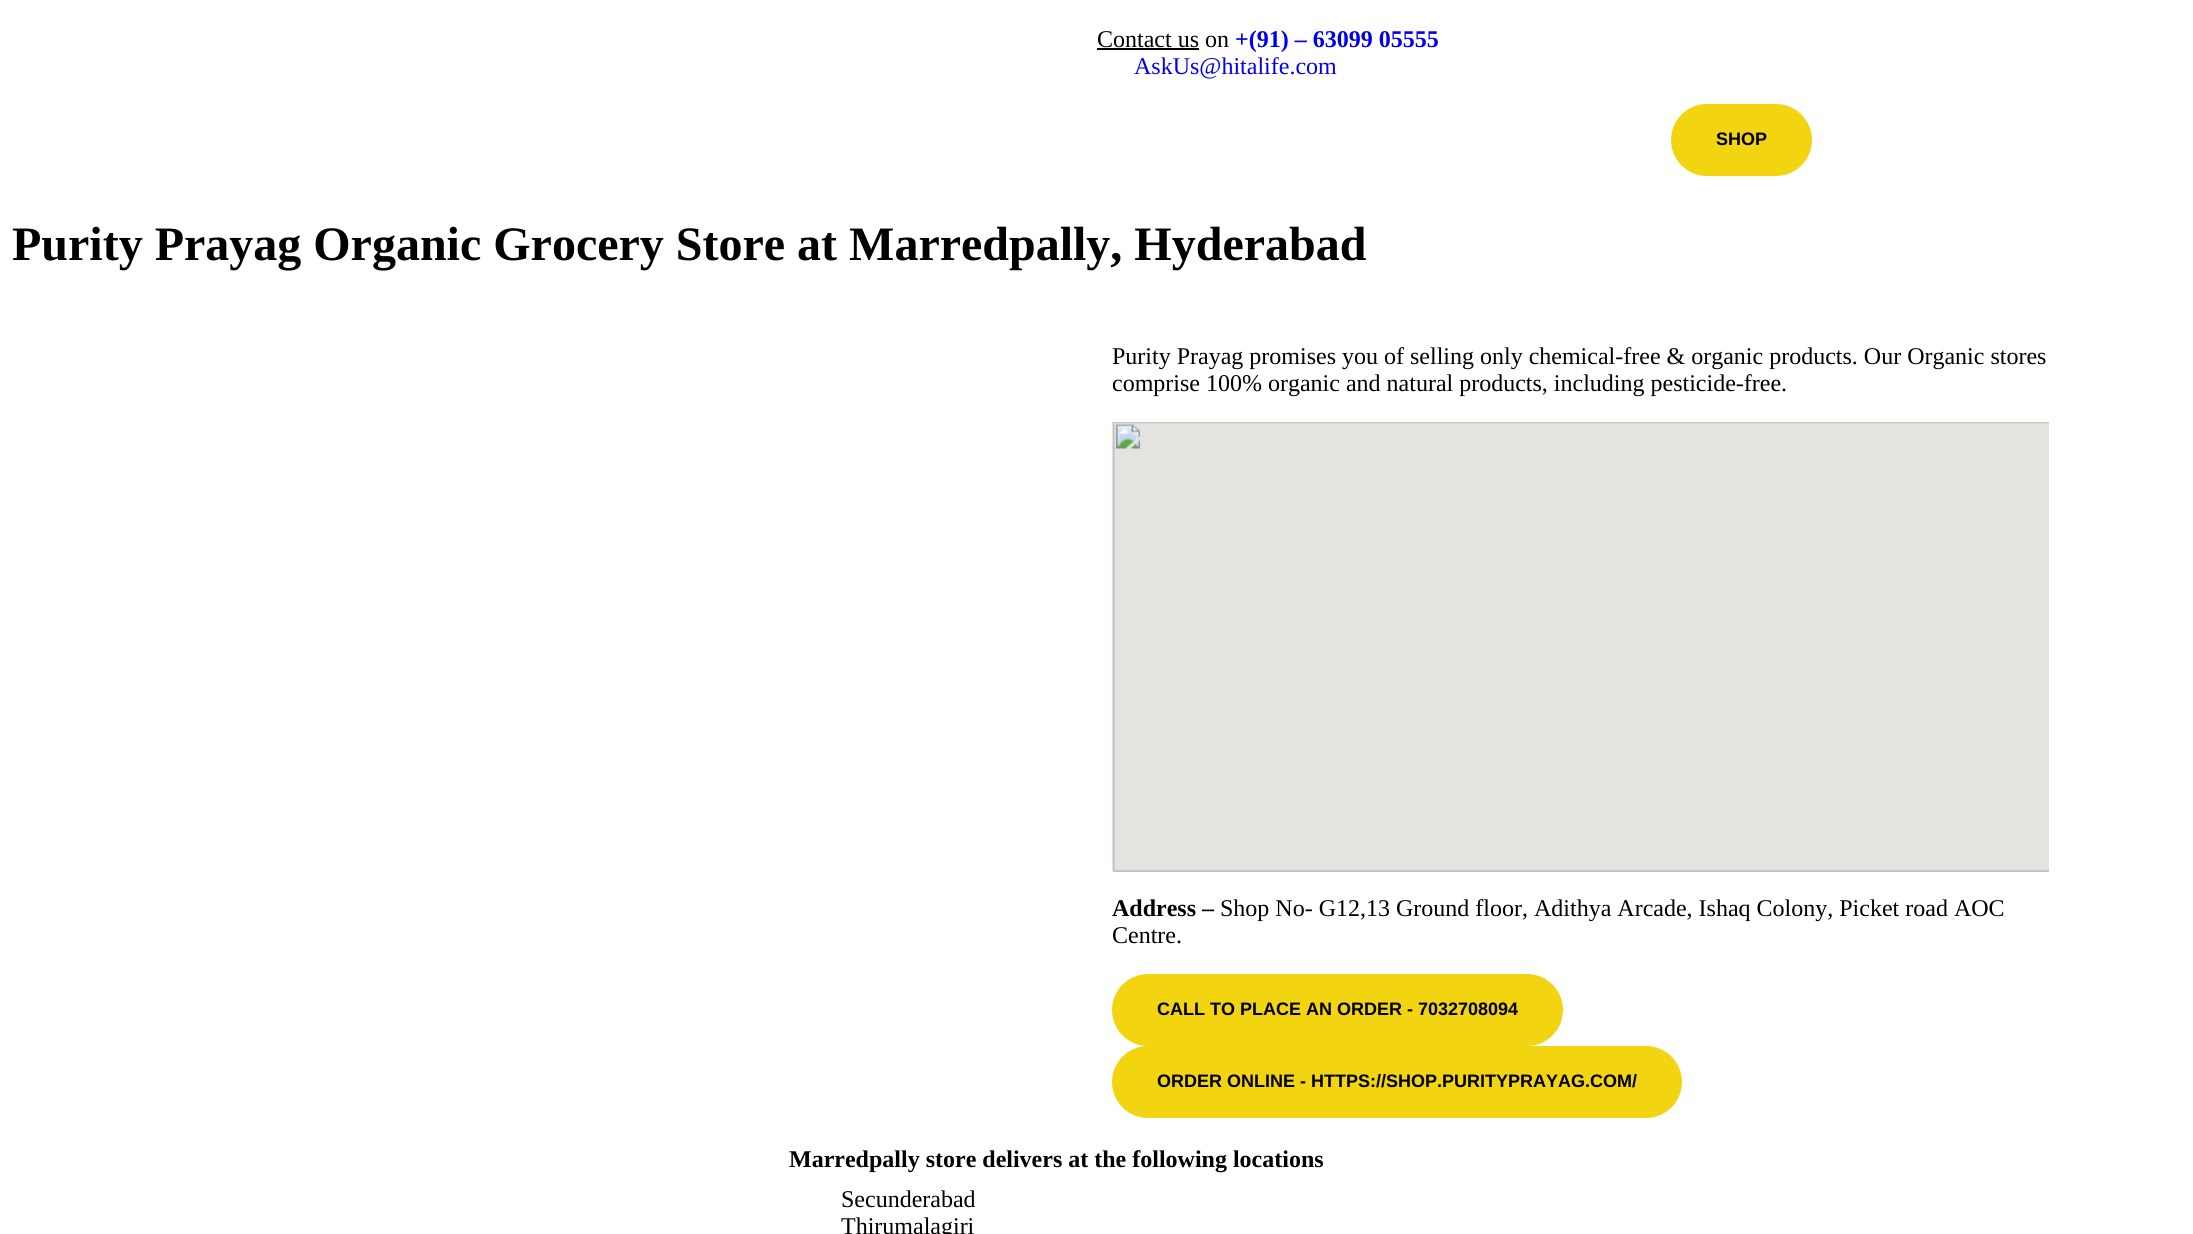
#include <cairo.h>
#include <math.h>
#include <stddef.h>

static cairo_t *c;
static void C(unsigned color){cairo_set_source_rgb(c, (color >> 16) / 255.0, (color >> 8 & 255) / 255.0, (color & 255) / 255.0);}
static void F(const char *family, double size, int italic, int bold){cairo_select_font_face(c, family, italic ? CAIRO_FONT_SLANT_ITALIC : CAIRO_FONT_SLANT_NORMAL,bold ? CAIRO_FONT_WEIGHT_BOLD : CAIRO_FONT_WEIGHT_NORMAL);cairo_set_font_size(c, size);}
static void T(double x, double y, const char *s){cairo_move_to(c, x, y);cairo_show_text(c, s);}
static void R(double x, double y, double w, double h){cairo_rectangle(c, x, y, w, h);cairo_fill(c);}
static void Q(double x, double y, double w, double h, double r){cairo_new_sub_path(c);cairo_arc(c, x + w - r, y + h - r, r, 0, M_PI / 2);cairo_arc(c, x + r, y + h - r, r, M_PI / 2, M_PI);cairo_arc(c, x + r, y + r, r, M_PI, 1.5 * M_PI);cairo_arc(c, x + w - r, y + r, r, 1.5 * M_PI, 2 * M_PI);cairo_close_path(c);}
static void I(const char *path, double x, double y, double w, double h){cairo_surface_t *image = cairo_image_surface_create_from_png(path);cairo_save(c);cairo_set_source_surface(c, image, x, y);cairo_rectangle(c, x, y, w, h);cairo_fill(c);cairo_restore(c);cairo_surface_destroy(image);}
int main(void) {
cairo_surface_t *surface = cairo_image_surface_create(CAIRO_FORMAT_RGB24, 2193, 1234);
c = cairo_create(surface);
cairo_font_options_t *options = cairo_font_options_create();
cairo_font_options_set_hint_metrics(options, CAIRO_HINT_METRICS_OFF);
cairo_font_options_set_hint_style(options, CAIRO_HINT_STYLE_NONE);
cairo_set_font_options(c, options);
cairo_set_miter_limit(c, 4);
C(0xffffff);
cairo_paint(c);
F("Liberation Serif",24,0,0);
C(0x000000);
T(1097,47,"Contact us on");
R(1097,48,102,2);
F("Liberation Serif",24,0,1);
C(0x0000ee);
T(1235,47,"+(91) – 63099 05555");
F("Liberation Serif",24,0,0);
T(1134,74,"AskUs@hitalife.com");
C(0xf2d411);
Q(1671,104,141,72,36);
cairo_fill(c);
F("Liberation Sans",18,0,1);
C(0x000000);
T(1716,145,"SHOP");
F("Liberation Serif",48,0,1);
T(12,260,"Purity Prayag Organic Grocery Store at Marredpally, Hyderabad");
F("Liberation Serif",24,0,0);
T(1112,364,"Purity Prayag promises you of selling only chemical-free & organic products. Our Organic stores");
T(1112,391,"comprise 100% organic and natural products, including pesticide-free.");
I("1.png",1111,421,938,451);
F("Liberation Serif",24,0,1);
T(1112,916,"Address –");
F("Liberation Serif",24,0,0);
T(1220,916,"Shop No- G12,13 Ground floor, Adithya Arcade, Ishaq Colony, Picket road AOC");
T(1112,943,"Centre.");
C(0xf2d411);
Q(1112,974,451,72,36);
cairo_fill(c);
F("Liberation Sans",18,0,1);
C(0x000000);
T(1157,1015,"CALL TO PLACE AN ORDER - 7032708094");
C(0xf2d411);
Q(1112,1046,570,72,36);
cairo_fill(c);
C(0x000000);
T(1157,1087,"ORDER ONLINE - HTTPS://SHOP.PURITYPRAYAG.COM/");
F("Liberation Serif",24,0,1);
T(789,1167,"Marredpally store delivers at the following locations");
F("Liberation Serif",24,0,0);
T(841,1207,"Secunderabad");
T(841,1234,"Thirumalagiri");
cairo_surface_write_to_png(surface, "o.png");
cairo_font_options_destroy(options);
cairo_destroy(c);
cairo_surface_destroy(surface);
return 0;
}
